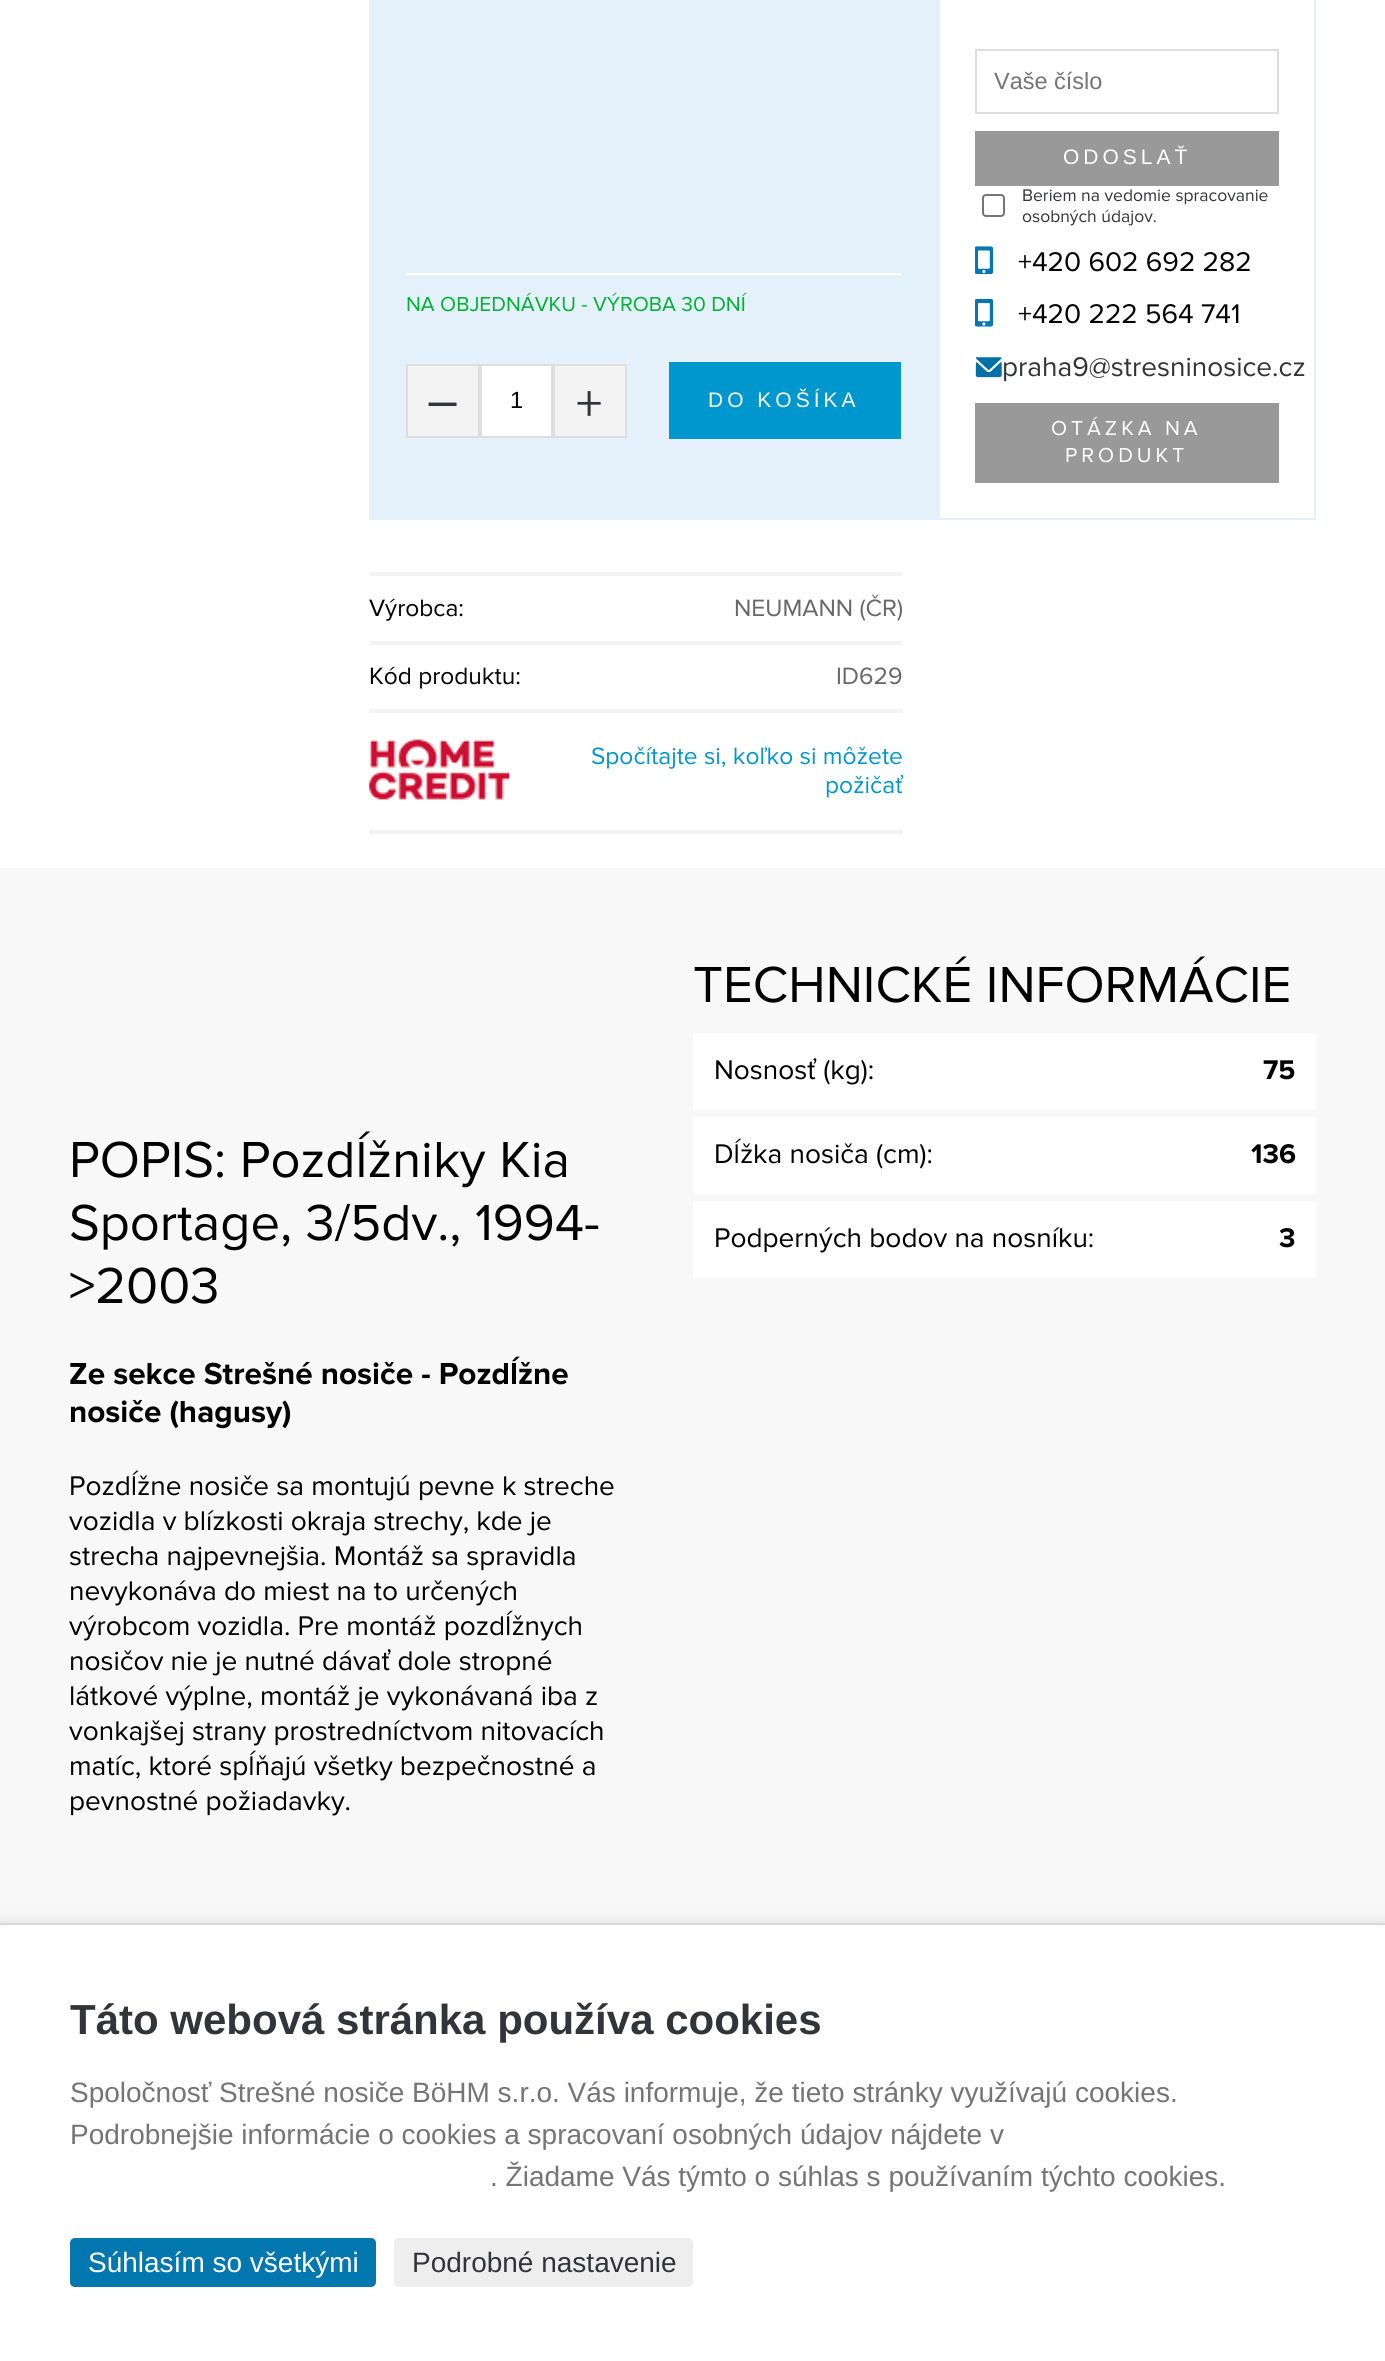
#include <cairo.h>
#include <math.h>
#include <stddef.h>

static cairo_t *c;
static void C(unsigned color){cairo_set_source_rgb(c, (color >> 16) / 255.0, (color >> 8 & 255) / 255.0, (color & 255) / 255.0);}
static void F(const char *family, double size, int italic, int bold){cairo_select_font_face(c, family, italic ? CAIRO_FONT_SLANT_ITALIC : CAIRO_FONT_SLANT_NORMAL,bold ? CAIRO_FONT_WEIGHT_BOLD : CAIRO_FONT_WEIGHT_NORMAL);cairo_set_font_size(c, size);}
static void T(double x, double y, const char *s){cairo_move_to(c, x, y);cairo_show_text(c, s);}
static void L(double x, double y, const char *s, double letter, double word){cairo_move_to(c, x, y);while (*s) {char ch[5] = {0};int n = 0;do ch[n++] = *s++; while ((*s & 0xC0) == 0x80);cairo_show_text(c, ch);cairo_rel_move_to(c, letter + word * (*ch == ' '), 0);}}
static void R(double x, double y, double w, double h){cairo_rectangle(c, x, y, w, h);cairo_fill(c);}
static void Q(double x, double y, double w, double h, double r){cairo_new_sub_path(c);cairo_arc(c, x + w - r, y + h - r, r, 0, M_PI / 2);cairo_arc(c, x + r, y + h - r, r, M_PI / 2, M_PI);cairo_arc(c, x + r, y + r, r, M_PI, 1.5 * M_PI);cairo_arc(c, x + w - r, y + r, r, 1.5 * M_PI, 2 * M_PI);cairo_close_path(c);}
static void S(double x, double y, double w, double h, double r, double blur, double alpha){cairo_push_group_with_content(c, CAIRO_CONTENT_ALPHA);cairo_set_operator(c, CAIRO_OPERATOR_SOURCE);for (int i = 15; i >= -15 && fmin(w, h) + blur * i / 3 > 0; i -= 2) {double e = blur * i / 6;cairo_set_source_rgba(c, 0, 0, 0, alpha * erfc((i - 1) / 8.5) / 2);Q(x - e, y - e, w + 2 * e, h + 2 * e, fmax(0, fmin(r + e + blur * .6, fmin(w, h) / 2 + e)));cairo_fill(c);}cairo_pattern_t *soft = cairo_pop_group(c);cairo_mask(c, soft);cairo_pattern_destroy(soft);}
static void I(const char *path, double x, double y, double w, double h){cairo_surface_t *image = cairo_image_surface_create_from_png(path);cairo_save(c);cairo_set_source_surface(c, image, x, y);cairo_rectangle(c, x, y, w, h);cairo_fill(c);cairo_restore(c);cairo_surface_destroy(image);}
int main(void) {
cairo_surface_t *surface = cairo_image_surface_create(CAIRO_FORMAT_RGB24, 1385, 2361);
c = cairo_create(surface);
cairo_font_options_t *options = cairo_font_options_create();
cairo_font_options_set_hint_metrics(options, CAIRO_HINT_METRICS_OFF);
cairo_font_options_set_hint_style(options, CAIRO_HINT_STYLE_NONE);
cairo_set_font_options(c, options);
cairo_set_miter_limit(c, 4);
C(0xffffff);
cairo_paint(c);
C(0xe4f0fa);
R(369,0,569,520);
C(0xffffff);
R(406,273,495,2);
F("Proxima Nova",21,0,0);
C(0x00b132);
T(406,311,"NA OBJEDNÁVKU - VÝROBA 30 DNÍ");
C(0xf3f3f3);
cairo_rectangle(c,407,365,72,72);
cairo_fill_preserve(c);
C(0xdedede);
cairo_stroke(c);
F("Proxima Nova",52.5,0,0);
C(0x333438);
T(427,417,"–");
C(0xffffff);
cairo_rectangle(c,481,365,71,72);
cairo_fill_preserve(c);
C(0xdedede);
cairo_stroke(c);
F("Liberation Sans",23.5,0,0);
C(0x000000);
T(510,408,"1");
C(0xf3f3f3);
cairo_rectangle(c,554,365,72,72);
cairo_fill_preserve(c);
C(0xdedede);
cairo_stroke(c);
F("Proxima Nova",52.5,0,0);
C(0x333438);
T(576,421,"+");
C(0x0097ce);
R(669,362,232,77);
F("Liberation Sans",21,0,0);
C(0xffffff);
L(708,407,"DO KOŠÍKA",4,0);
cairo_rectangle(c,939,-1,376,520);
C(0xe4f0fa);
cairo_stroke(c);
cairo_rectangle(c,976,50,302,63);
C(0xdedede);
cairo_stroke(c);
F("Liberation Sans",23.5,0,0);
C(0x757575);
T(994,89,"Vaše číslo");
C(0x999999);
R(975,131,304,55);
F("Liberation Sans",21,0,0);
C(0xffffff);
L(1063,164,"ODOSLAŤ",4,0);
Q(983,195,21,21,3);
C(0x767676);
cairo_stroke(c);
F("Proxima Nova",17.5,0,0);
C(0x333438);
T(1022,201,"Beriem na vedomie spracovanie");
T(1022,222,"osobných údajov.");
I("1.png",975,246,19,28);
F("Proxima Nova",28,0,0);
C(0x000000);
T(1018,271,"+420 602 692 282");
I("2.png",975,299,19,28);
T(1018,323,"+420 222 564 741");
I("3.png",975,357,27,21);
C(0x333438);
T(1002,376,"praha9@stresninosice.cz");
C(0x999999);
R(975,403,304,80);
F("Proxima Nova",21,0,0);
C(0xffffff);
L(1051,435,"OTÁZKA NA",4,0);
L(1065,462,"PRODUKT",4,0);
C(0xf3f3f3);
R(369,572,534,4);
F("Proxima Nova",24.5,0,0);
C(0x000000);
T(369,616,"Výrobca:");
C(0x686868);
T(734,616,"NEUMANN (ČR)");
C(0xf3f3f3);
R(369,641,534,4);
C(0x000000);
T(369,684,"Kód produktu:");
C(0x686868);
T(836,684,"ID629");
C(0xf3f3f3);
R(369,709,534,4);
R(369,830,534,4);
I("4.png",369,739,141,61);
C(0x0097ce);
T(591,764,"Spočítajte si, koľko si môžete");
T(825,793,"požičať");
C(0xf8f8f8);
R(0,868,1385,1055);
F("Proxima Nova",52.5,0,0);
C(0x000000);
T(69,1177,"POPIS: Pozdĺžniky Kia");
T(69,1240,"Sportage, 3/5dv., 1994-");
T(69,1303,">2003");
F("Proxima Nova",31.5,0,1);
T(69,1384,"Ze sekce Strešné nosiče - Pozdĺžne");
T(69,1422,"nosiče (hagusy)");
F("Proxima Nova",28,0,0);
T(69,1495,"Pozdĺžne nosiče sa montujú pevne k streche");
T(69,1530,"vozidla v blízkosti okraja strechy, kde je");
T(69,1565,"strecha najpevnejšia. Montáž sa spravidla");
T(69,1600,"nevykonáva do miest na to určených");
T(69,1635,"výrobcom vozidla. Pre montáž pozdĺžnych");
T(69,1670,"nosičov nie je nutné dávať dole stropné");
T(69,1705,"látkové výplne, montáž je vykonávaná iba z");
T(69,1740,"vonkajšej strany prostredníctvom nitovacích");
T(69,1775,"matíc, ktoré spĺňajú všetky bezpečnostné a");
T(69,1810,"pevnostné požiadavky.");
F("Proxima Nova",52.5,0,0);
T(693,1002,"TECHNICKÉ INFORMÁCIE");
C(0xffffff);
R(693,1033,623,77);
F("Proxima Nova",28,0,0);
C(0x000000);
T(714,1079,"Nosnosť (kg):");
F("Proxima Nova",28,0,1);
T(1263,1079,"75");
C(0xffffff);
R(693,1117,623,77);
F("Proxima Nova",28,0,0);
C(0x000000);
T(714,1163,"Dĺžka nosiča (cm):");
F("Proxima Nova",28,0,1);
T(1251,1163,"136");
C(0xffffff);
R(693,1201,623,77);
F("Proxima Nova",28,0,0);
C(0x000000);
T(714,1247,"Podperných bodov na nosníku:");
F("Proxima Nova",28,0,1);
T(1279,1247,"3");
C(0x000000);
S(0,1927,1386,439,0,9,.2);
C(0xffffff);
R(0,1925,1385,436);
C(0xd9d9d9);
R(0,1923,1385,2);
F("Liberation Sans",42,0,1);
C(0x333438);
T(70,2034,"Táto webová stránka používa cookies");
F("Liberation Sans",28,0,0);
C(0x757575);
T(70,2102,"Spoločnosť Strešné nosiče BöHM s.r.o. Vás informuje, že tieto stránky využívajú cookies.");
T(70,2144,"Podrobnejšie informácie o cookies a spracovaní osobných údajov nájdete v");
T(490,2186,". Žiadame Vás týmto o súhlas s používaním týchto cookies.");
C(0x0277b0);
Q(70,2238,306,49,5);
cairo_fill(c);
C(0xffffff);
T(88,2272,"Súhlasím so všetkými");
C(0xeeeeee);
Q(394,2238,299,49,5);
cairo_fill(c);
C(0x333438);
T(412,2272,"Podrobné nastavenie");
cairo_surface_write_to_png(surface, "o.png");
cairo_font_options_destroy(options);
cairo_destroy(c);
cairo_surface_destroy(surface);
return 0;
}
